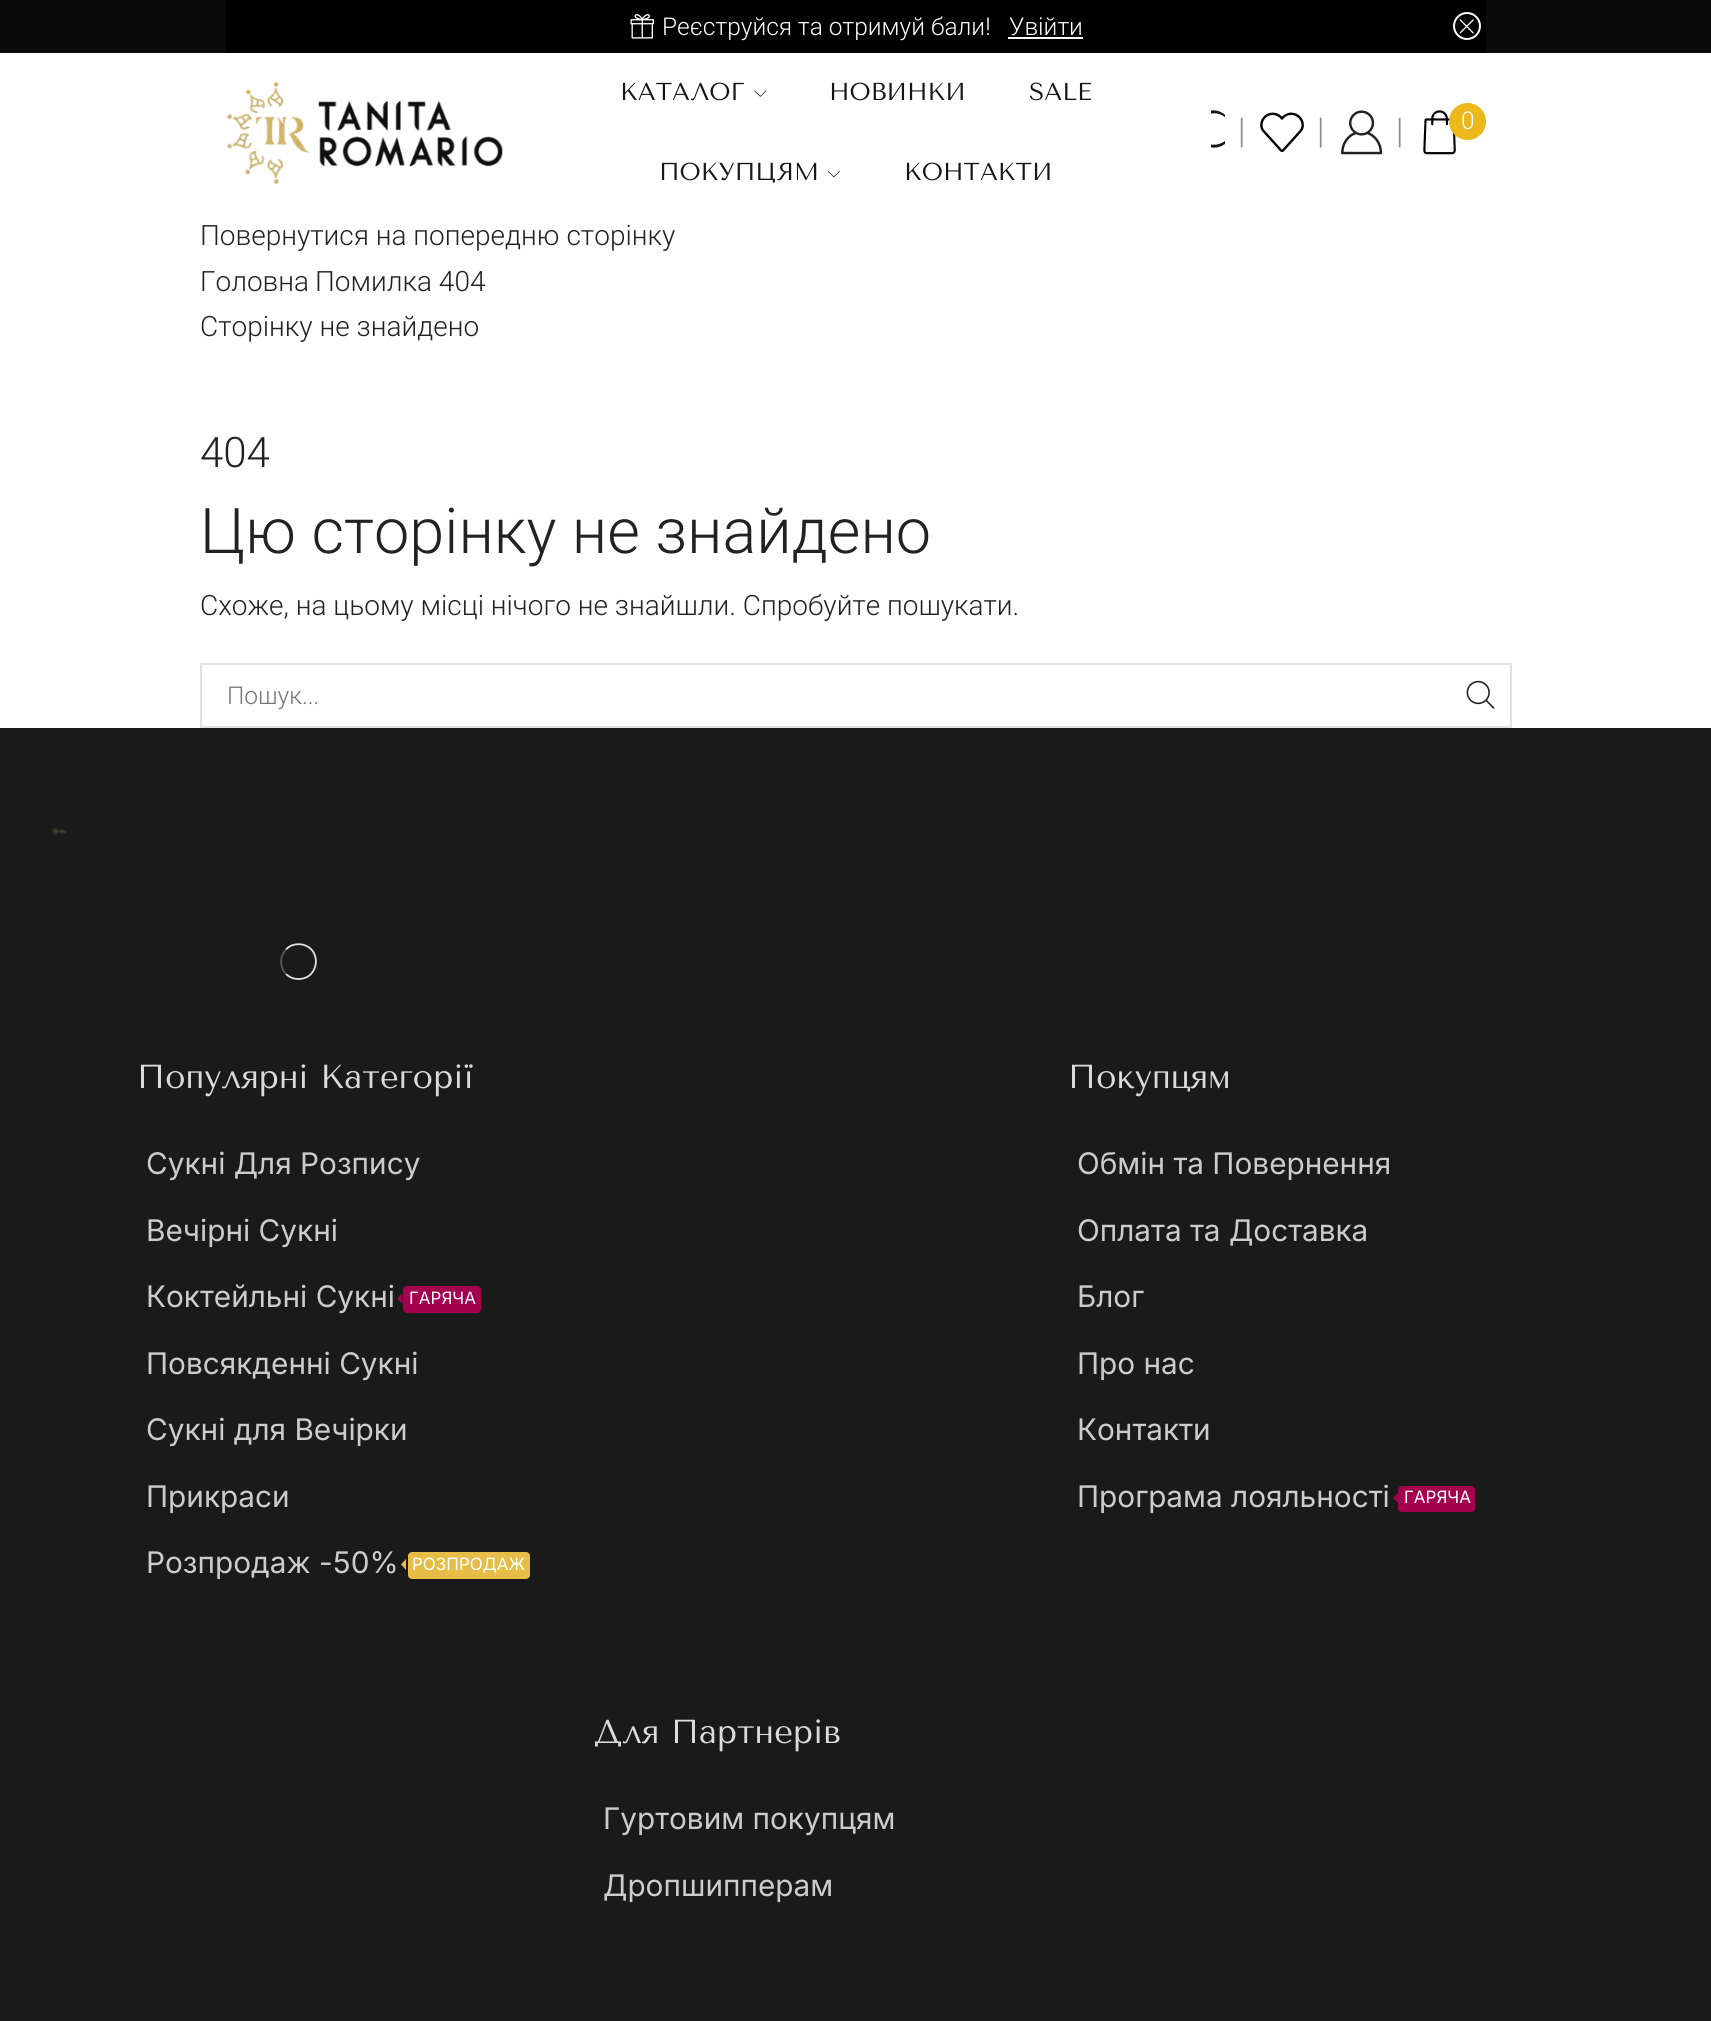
#include <cairo.h>
#include <math.h>
#include <stddef.h>

static cairo_t *c;
static void C(unsigned color){cairo_set_source_rgb(c, (color >> 16) / 255.0, (color >> 8 & 255) / 255.0, (color & 255) / 255.0);}
static void F(const char *family, double size, int italic, int bold){cairo_select_font_face(c, family, italic ? CAIRO_FONT_SLANT_ITALIC : CAIRO_FONT_SLANT_NORMAL,bold ? CAIRO_FONT_WEIGHT_BOLD : CAIRO_FONT_WEIGHT_NORMAL);cairo_set_font_size(c, size);}
static void T(double x, double y, const char *s){cairo_move_to(c, x, y);cairo_show_text(c, s);}
static void R(double x, double y, double w, double h){cairo_rectangle(c, x, y, w, h);cairo_fill(c);}
static void Q(double x, double y, double w, double h, double r){cairo_new_sub_path(c);cairo_arc(c, x + w - r, y + h - r, r, 0, M_PI / 2);cairo_arc(c, x + r, y + h - r, r, M_PI / 2, M_PI);cairo_arc(c, x + r, y + r, r, M_PI, 1.5 * M_PI);cairo_arc(c, x + w - r, y + r, r, 1.5 * M_PI, 2 * M_PI);cairo_close_path(c);}
static void I(const char *path, double x, double y, double w, double h){cairo_surface_t *image = cairo_image_surface_create_from_png(path);cairo_save(c);cairo_set_source_surface(c, image, x, y);cairo_rectangle(c, x, y, w, h);cairo_fill(c);cairo_restore(c);cairo_surface_destroy(image);}
int main(void) {
cairo_surface_t *surface = cairo_image_surface_create(CAIRO_FORMAT_RGB24, 1711, 2021);
c = cairo_create(surface);
cairo_font_options_t *options = cairo_font_options_create();
cairo_font_options_set_hint_metrics(options, CAIRO_HINT_METRICS_OFF);
cairo_font_options_set_hint_style(options, CAIRO_HINT_STYLE_NONE);
cairo_set_font_options(c, options);
cairo_set_miter_limit(c, 4);
C(0xffffff);
cairo_paint(c);
C(0x0a0a0a);
R(0,0,1711,53);
C(0x000000);
R(226,0,1260,53);
I("1.png",630,14,24,25);
F("Roboto Light",24.5,0,0);
C(0xffffff);
T(662,35,"Реєструйся та отримуй бали!");
T(1009,35,"Увійти");
R(1008,37,75,2);
cairo_new_path(c);
cairo_arc(c,1467,26,13,0,2 * M_PI);
cairo_stroke(c);
I("2.png",1459,19,15,15);
I("3.png",226,82,277,102);
F("Tenor Sans",24.5,0,0);
C(0x161616);
T(620,100,"КАТАЛОГ");
I("4.png",754,90,13,7);
T(829,100,"НОВИНКИ");
T(1029,100,"SALE");
T(659,180,"ПОКУПЦЯМ");
I("5.png",828,171,12,7);
T(904,180,"КОНТАКТИ");
cairo_save(c);
cairo_rectangle(c,1211,110,14,46);
cairo_clip(c);
cairo_new_path(c);
cairo_move_to(c,1239,152);
cairo_line_to(c,1228,141);
cairo_curve_to(c,1242,124,1218,99,1201,116);
cairo_curve_to(c,1184,133,1209,158,1226,143);
cairo_curve_to(c,1227,144,1237,155,1238,154);
cairo_curve_to(c,1239,154,1240,153,1239,152);
cairo_close_path(c);
cairo_move_to(c,1230,129);
cairo_curve_to(c,1230,150,1198,150,1198,129);
cairo_curve_to(c,1198,108,1230,108,1230,129);
cairo_close_path(c);
cairo_fill(c);
cairo_restore(c);
F("Liberation Serif",24.5,0,0);
C(0x8b8b8b);
T(1233,140,"│");
I("6.png",1260,112,44,40);
T(1312,140,"│");
I("7.png",1341,110,42,45);
T(1391,140,"│");
I("8.png",1423,110,33,45);
C(0xecb81c);
cairo_arc(c,1467.5,121.5,18.5,0,2 * M_PI);
cairo_fill(c);
F("Roboto Light",24.5,0,0);
C(0xffffff);
T(1461,129,"0");
F("Roboto Light",28,0,0);
C(0x222222);
T(200,245,"Повернутися на попередню сторінку");
T(200,291,"Головна");
T(315,291,"Помилка 404");
T(200,336,"Сторінку не знайдено");
F("Roboto Light",42,0,0);
T(200,467,"404");
F("Roboto Light",63,0,0);
T(200,553,"Цю сторінку не знайдено");
F("Roboto Light",28,0,0);
T(200,615,"Схоже, на цьому місці нічого не знайшли. Спробуйте пошукати.");
cairo_rectangle(c,201,664,1310,63);
C(0xe1e1e1);
cairo_stroke(c);
F("Roboto Light",24.5,0,0);
C(0x757575);
T(227,704,"Пошук...");
I("9.png",1466,680,29,29);
C(0x1a1a1a);
R(0,728,1711,1293);
I("10.png",52,827,15,8);
cairo_new_path(c);
cairo_move_to(c,286,949.5);
cairo_curve_to(c,290,945,296,943.5,302,944.5);
cairo_curve_to(c,322.5,948.5,319.5,979,298.5,979);
cairo_curve_to(c,294,979,289.5,977.5,286,974);
C(0xe1e1e1);
cairo_set_line_width(c,1.8);
cairo_stroke(c);
cairo_new_path(c);
cairo_move_to(c,286,974);
cairo_curve_to(c,279.5,967.5,279.5,956,286,949.5);
C(0x555555);
cairo_stroke(c);
F("Tenor Sans",33.25,0,0);
C(0xdbdbdb);
T(137,1088,"Популярні Категорії");
F("Inter",29.75,0,0);
C(0xcccccc);
T(146,1174,"Сукні Для Розпису");
T(146,1241,"Вечірні Сукні");
T(146,1307,"Коктейльні Сукні");
C(0xa4004f);
Q(403,1286,78,27,4);
cairo_fill(c);
cairo_new_path(c);
cairo_move_to(c,402.5,1293);
cairo_line_to(c,402.5,1304);
cairo_line_to(c,397,1298.5);
cairo_close_path(c);
cairo_fill(c);
F("Inter",17,0,0);
C(0xffffff);
T(409,1304,"ГАРЯЧА");
F("Inter",29.75,0,0);
C(0xcccccc);
T(146,1374,"Повсякденні Сукні");
T(146,1440,"Сукні для Вечірки");
T(146,1507,"Прикраси");
T(146,1573,"Розпродаж -50%");
C(0xe6bd47);
Q(408,1552,122,27,4);
cairo_fill(c);
cairo_new_path(c);
cairo_move_to(c,406,1559);
cairo_line_to(c,406,1570);
cairo_line_to(c,401,1564.5);
cairo_close_path(c);
cairo_fill(c);
F("Inter",17,0,0);
C(0xffffff);
T(412,1570,"РОЗПРОДАЖ");
F("Tenor Sans",33.25,0,0);
C(0xdbdbdb);
T(1068,1088,"Покупцям");
F("Inter",29.75,0,0);
C(0xcccccc);
T(1077,1174,"Обмін та Повернення");
T(1077,1241,"Оплата та Доставка");
T(1077,1307,"Блог");
T(1077,1374,"Про нас");
T(1077,1440,"Контакти");
T(1077,1507,"Програма лояльності");
C(0xa4004f);
Q(1398,1486,77,26,4);
cairo_fill(c);
cairo_new_path(c);
cairo_move_to(c,1398,1493);
cairo_line_to(c,1398,1503);
cairo_line_to(c,1393,1498);
cairo_close_path(c);
cairo_fill(c);
F("Inter",17,0,0);
C(0xffffff);
T(1404,1503,"ГАРЯЧА");
F("Tenor Sans",33.25,0,0);
C(0xdbdbdb);
T(594,1743,"Для Партнерів");
F("Inter",29.75,0,0);
C(0xcccccc);
T(603,1829,"Гуртовим покупцям");
T(603,1896,"Дропшипперам");
cairo_surface_write_to_png(surface, "o.png");
cairo_font_options_destroy(options);
cairo_destroy(c);
cairo_surface_destroy(surface);
return 0;
}
